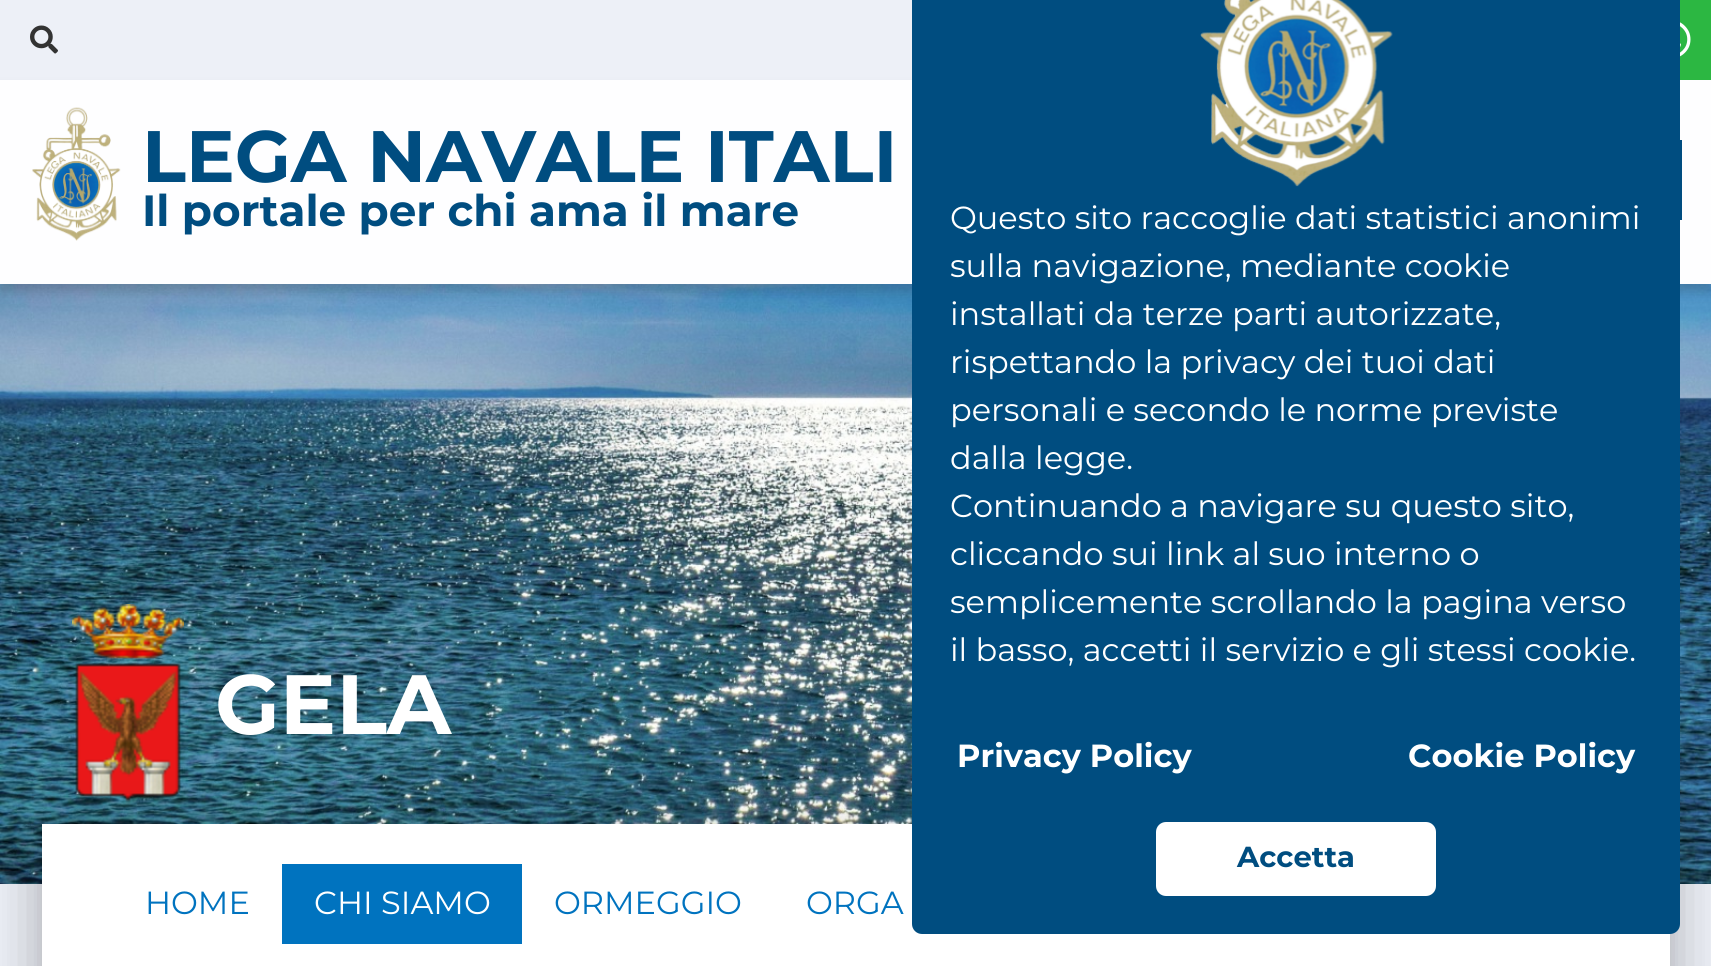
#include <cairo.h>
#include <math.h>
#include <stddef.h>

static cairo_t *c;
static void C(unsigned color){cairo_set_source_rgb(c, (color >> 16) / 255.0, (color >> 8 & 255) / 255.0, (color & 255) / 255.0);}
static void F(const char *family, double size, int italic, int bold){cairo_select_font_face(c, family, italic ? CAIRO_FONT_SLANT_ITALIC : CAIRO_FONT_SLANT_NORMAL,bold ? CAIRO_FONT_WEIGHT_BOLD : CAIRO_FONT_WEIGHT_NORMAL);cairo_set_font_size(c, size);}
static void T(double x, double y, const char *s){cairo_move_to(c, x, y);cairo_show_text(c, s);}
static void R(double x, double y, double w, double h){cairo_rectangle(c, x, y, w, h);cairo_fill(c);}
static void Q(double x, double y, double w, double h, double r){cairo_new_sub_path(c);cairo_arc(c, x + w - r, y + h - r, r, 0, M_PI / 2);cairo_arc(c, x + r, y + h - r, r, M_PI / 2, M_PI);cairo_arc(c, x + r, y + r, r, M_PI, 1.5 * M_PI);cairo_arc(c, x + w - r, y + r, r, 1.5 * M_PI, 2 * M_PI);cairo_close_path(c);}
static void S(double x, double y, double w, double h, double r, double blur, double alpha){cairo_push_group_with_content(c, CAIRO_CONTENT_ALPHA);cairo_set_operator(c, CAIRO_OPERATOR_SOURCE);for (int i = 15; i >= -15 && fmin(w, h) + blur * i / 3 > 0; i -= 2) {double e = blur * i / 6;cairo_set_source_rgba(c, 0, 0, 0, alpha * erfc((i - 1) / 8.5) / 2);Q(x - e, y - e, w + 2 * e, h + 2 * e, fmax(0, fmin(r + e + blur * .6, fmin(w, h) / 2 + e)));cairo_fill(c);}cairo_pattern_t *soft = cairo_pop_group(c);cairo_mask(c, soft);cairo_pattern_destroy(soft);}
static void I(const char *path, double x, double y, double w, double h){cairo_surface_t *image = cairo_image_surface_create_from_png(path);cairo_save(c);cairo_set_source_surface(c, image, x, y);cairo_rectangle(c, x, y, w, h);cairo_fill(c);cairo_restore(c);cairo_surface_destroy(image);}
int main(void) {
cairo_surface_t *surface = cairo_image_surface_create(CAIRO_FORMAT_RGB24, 1711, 966);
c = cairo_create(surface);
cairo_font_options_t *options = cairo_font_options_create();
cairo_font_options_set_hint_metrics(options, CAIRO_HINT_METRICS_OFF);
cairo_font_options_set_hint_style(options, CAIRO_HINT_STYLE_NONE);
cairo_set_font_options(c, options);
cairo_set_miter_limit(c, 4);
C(0xedf0f7);
cairo_paint(c);
I("1.png",30,25,28,29);
I("4.png",0,284,1711,600);
C(0x323232);
S(0,88,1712,204,0,5,.2);
C(0x2cb742);
R(1680,0,31,80);
I("2.png",1680,22,11,35);
C(0xfefeff);
R(0,80,1711,204);
I("3.png",32,107,89,134);
F("Montserrat",72.75,0,1);
C(0x004d80);
T(142,182,"LEGA NAVALE ITALI");
F("Montserrat",43.7,0,1);
T(142,226,"Il portale per chi ama il mare");
R(1680,140,2,80);
I("5.png",72,604,112,200);
F("Montserrat",84,0,1);
C(0xffffff);
T(215,734,"GELA");
C(0x000000);
S(52,850,1608,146,0,10,.2);
S(32,826,1648,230,0,30,.12);
S(38,852,1636,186,0,24,.14);
C(0xffffff);
R(42,824,1628,142);
F("Montserrat",32,0,0);
C(0x0073bf);
T(145,914,"HOME");
R(282,864,240,80);
C(0xffffff);
T(314,914,"CHI SIAMO");
C(0x0073bf);
T(554,914,"ORMEGGIO");
T(806,914,"ORGA");
C(0x004d80);
Q(912,-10,768,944,10);
cairo_fill(c);
I("6.png",1200,0,193,187);
C(0xffffff);
T(950,229,"Questo sito raccoglie dati statistici anonimi");
T(950,277,"sulla navigazione, mediante cookie");
T(950,325,"installati da terze parti autorizzate,");
T(950,373,"rispettando la privacy dei tuoi dati");
T(950,421,"personali e secondo le norme previste");
T(950,469,"dalla legge.");
T(950,517,"Continuando a navigare su questo sito,");
T(950,565,"cliccando sui link al suo interno o");
T(950,613,"semplicemente scrollando la pagina verso");
T(950,661,"il basso, accetti il servizio e gli stessi cookie.");
F("Montserrat",32,0,1);
T(957,767,"Privacy Policy");
T(1408,767,"Cookie Policy");
Q(1156,822,280,74,10);
cairo_fill(c);
F("Montserrat",29,0,1);
C(0x004d80);
T(1237,867,"Accetta");
cairo_surface_write_to_png(surface, "o.png");
cairo_font_options_destroy(options);
cairo_destroy(c);
cairo_surface_destroy(surface);
return 0;
}
